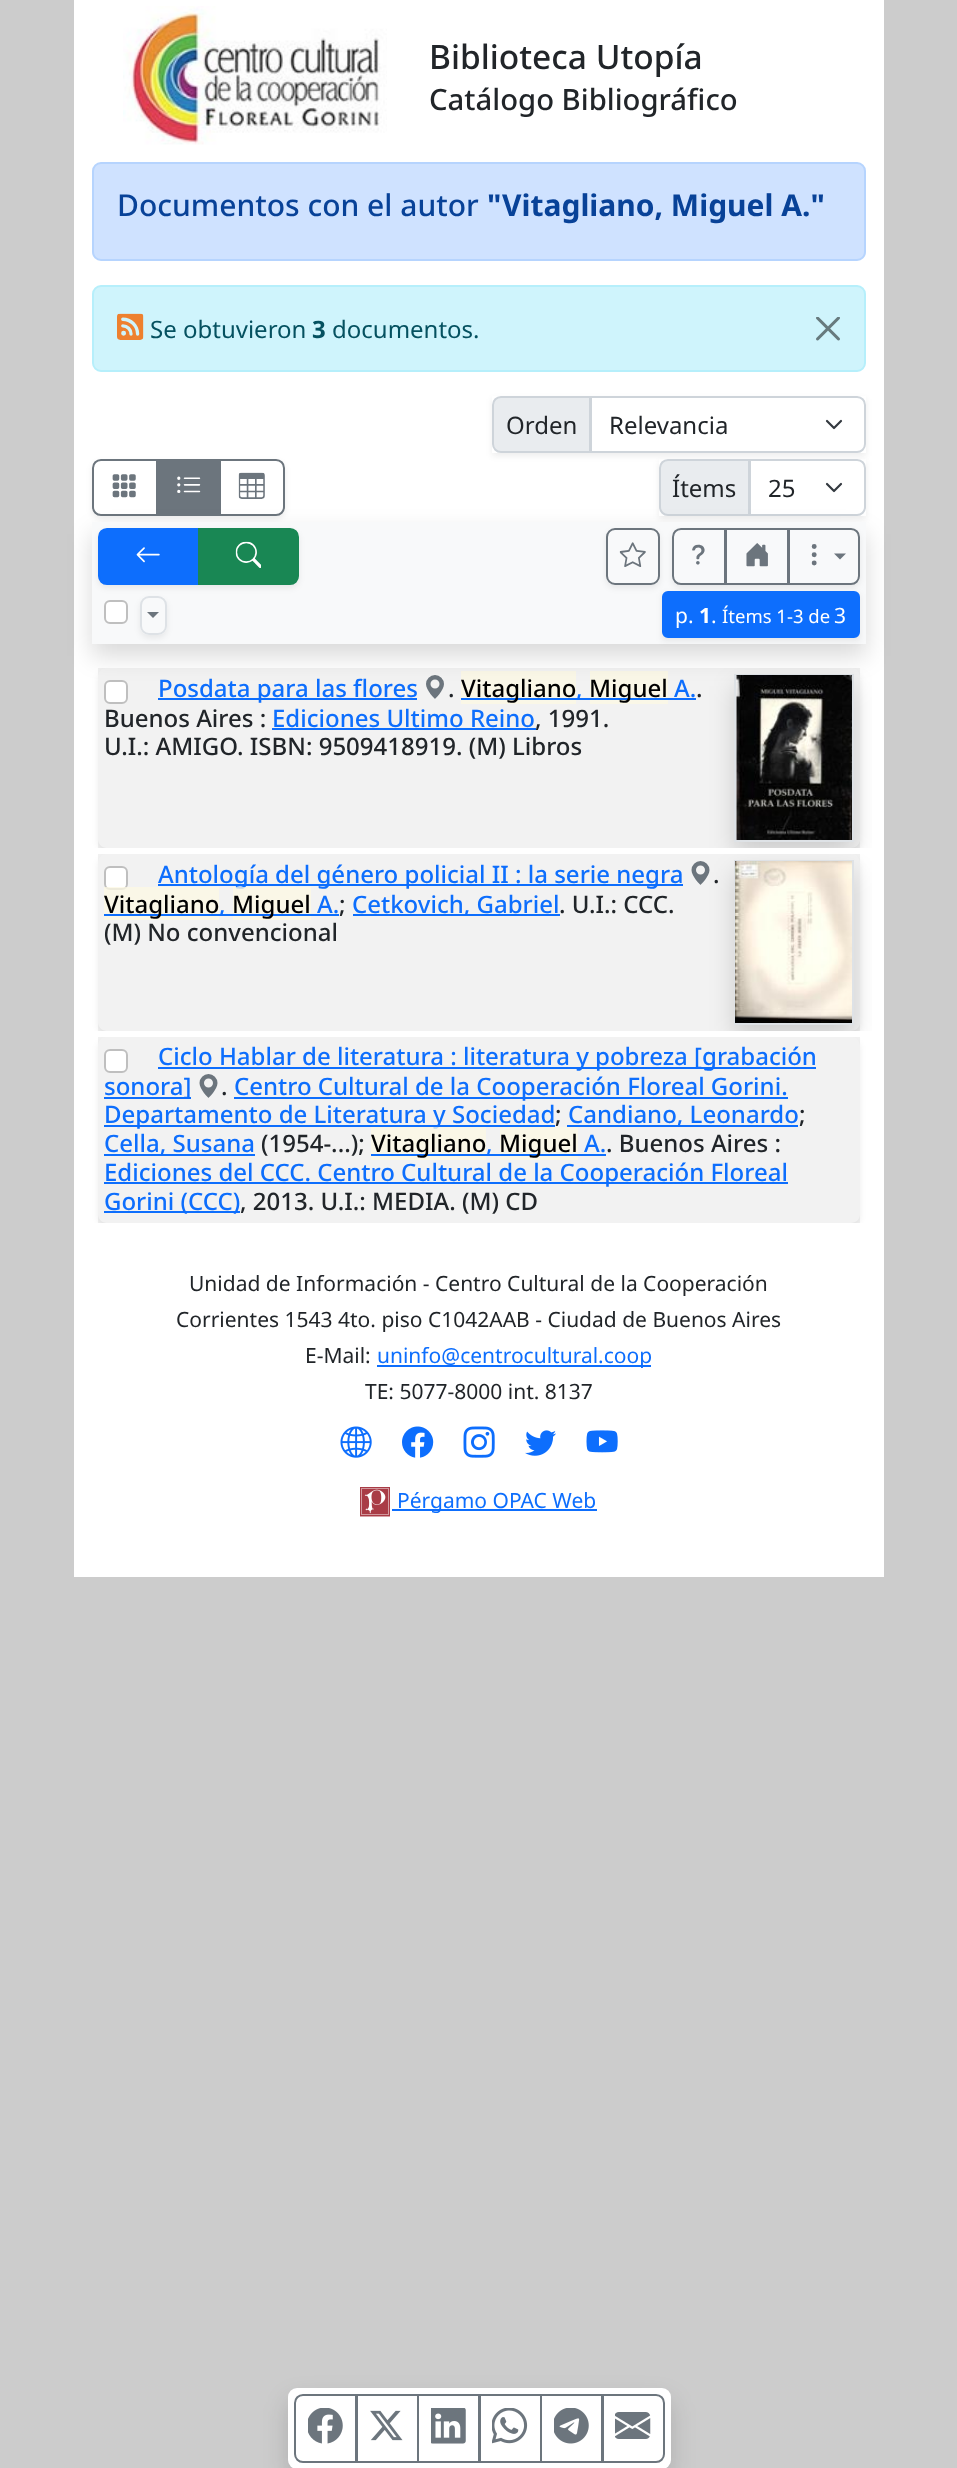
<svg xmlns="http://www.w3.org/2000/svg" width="957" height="2468">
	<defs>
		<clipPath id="clip1"><path d="M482 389H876V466H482ZM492 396H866V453H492Z" clip-rule="evenodd" /></clipPath>
		<clipPath id="clip2"><path d="M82 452H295V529H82ZM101 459H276C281 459 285 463 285 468V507C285 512 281 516 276 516H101C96 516 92 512 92 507V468C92 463 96 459 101 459Z" clip-rule="evenodd" /></clipPath>
		<clipPath id="clip3"><path d="M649 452H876V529H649ZM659 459H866V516H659Z" clip-rule="evenodd" /></clipPath>
		<clipPath id="clip4"><rect x="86" y="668" width="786" height="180" /></clipPath>
		<clipPath id="clip5"><path d="M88 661H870V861H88ZM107 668H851C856 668 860 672 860 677V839C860 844 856 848 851 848H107C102 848 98 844 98 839V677C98 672 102 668 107 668Z" clip-rule="evenodd" /></clipPath>
		<clipPath id="clip6"><path d="M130 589H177V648H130ZM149 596H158C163 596 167 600 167 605V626C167 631 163 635 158 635H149C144 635 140 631 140 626V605C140 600 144 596 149 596Z" clip-rule="evenodd" /></clipPath>
		<clipPath id="clip7"><path d="M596 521H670V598H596ZM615 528H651C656 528 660 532 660 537V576C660 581 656 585 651 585H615C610 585 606 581 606 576V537C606 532 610 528 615 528Z" clip-rule="evenodd" /></clipPath>
		<clipPath id="clip8"><path d="M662 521H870V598H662ZM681 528H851C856 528 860 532 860 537V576C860 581 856 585 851 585H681C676 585 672 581 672 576V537C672 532 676 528 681 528Z" clip-rule="evenodd" /></clipPath>
		<clipPath id="clip9"><rect x="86" y="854" width="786" height="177" /></clipPath>
		<clipPath id="clip10"><path d="M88 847H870V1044H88ZM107 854H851C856 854 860 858 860 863V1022C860 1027 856 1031 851 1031H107C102 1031 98 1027 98 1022V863C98 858 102 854 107 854Z" clip-rule="evenodd" /></clipPath>
		<clipPath id="clip11"><rect x="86" y="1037" width="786" height="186" /></clipPath>
		<clipPath id="clip12"><path d="M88 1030H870V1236H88ZM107 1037H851C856 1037 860 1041 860 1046V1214C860 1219 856 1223 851 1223H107C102 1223 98 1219 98 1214V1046C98 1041 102 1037 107 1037Z" clip-rule="evenodd" /></clipPath>
	</defs>
	<rect width="100%" height="100%" fill="#CCCCCC" />
	<rect x="74" y="0" width="810" height="1577" fill="#FFFFFF" />
	<image x="123" y="6" width="264" height="139" href="assets/img1.png" />
	<text x="429" y="69" font-family="Noto Sans" font-size="33.5" font-weight="500" fill="#212529">Biblioteca Utopía</text>
	<text x="429" y="110" font-family="Noto Sans" font-size="29.25" font-weight="500" fill="#212529">Catálogo Bibliográfico</text>
	<rect x="93" y="163" width="772" height="97" rx="8" fill="#CFE2FF" stroke="#B6D4FE" stroke-width="2" />
	<text x="117" y="216" font-family="Noto Sans" font-size="30" font-weight="500" fill="#084298">Documentos con el autor</text>
	<text x="487" y="216" font-family="Noto Sans" font-size="30" font-weight="700" fill="#084298">"Vitagliano, Miguel A."</text>
	<rect x="93" y="286" width="772" height="85" rx="8" fill="#CFF4FC" stroke="#B6EFFB" stroke-width="2" />
	<image x="117" y="313" width="27" height="27" href="assets/img2.png" />
	<text x="150" y="338" font-family="Noto Sans" font-size="24" fill="#055160">Se obtuvieron</text>
	<text x="312" y="338" font-family="Noto Sans" font-size="24" font-weight="700" fill="#055160">3</text>
	<text x="332" y="338" font-family="Noto Sans" font-size="24" fill="#055160">documentos.</text>
	<image x="816" y="317" width="24" height="24" href="assets/img3.png" />
	<g clip-path="url(#clip1)">
		<rect x="492" y="399" width="374" height="57" fill="#000000" fill-opacity="0.07" filter="blur(3px)" />
	</g>
	<path d="M501 397H590V452H501C496.5 452 493 448.5 493 444V405C493 400.5 496.5 397 501 397Z" fill="#E9ECEF" stroke="#CED4DA" stroke-width="2" />
	<text x="506" y="434" font-family="Noto Sans" font-size="24" fill="#212529">Orden</text>
	<path d="M590 396H857C862 396 866 400 866 405V444C866 449 862 453 857 453H590Z" fill="#FFFFFF" />
	<path d="M827 421L834 428L841 421" fill="none" stroke="#343A40" stroke-width="2.2" stroke-linecap="round" stroke-linejoin="round" />
	<path d="M591 397H857C861.5 397 865 400.5 865 405V444C865 448.5 861.5 452 857 452H591Z" fill="none" stroke="#CED4DA" stroke-width="2" />
	<text x="609" y="434" font-family="Noto Sans" font-size="24" fill="#212529">Relevancia</text>
	<g clip-path="url(#clip2)">
		<rect x="92" y="462" width="193" height="57" rx="9" fill="#000000" fill-opacity="0.07" filter="blur(3px)" />
	</g>
	<path d="M101 460H157V515H101C96.5 515 93 511.5 93 507V468C93 463.5 96.5 460 101 460Z" fill="none" stroke="#6C757D" stroke-width="2" />
	<image x="112" y="474" width="24" height="24" href="assets/img4.png" />
	<rect x="158" y="459" width="61" height="57" fill="#6C757D" />
	<image x="177" y="476" width="24" height="17" href="assets/img5.png" />
	<path d="M220 460H276C280.5 460 284 463.5 284 468V507C284 511.5 280.5 515 276 515H220Z" fill="none" stroke="#6C757D" stroke-width="2" />
	<image x="238" y="472" width="27" height="27" href="assets/img6.png" />
	<g clip-path="url(#clip3)">
		<rect x="659" y="462" width="207" height="57" fill="#000000" fill-opacity="0.07" filter="blur(3px)" />
	</g>
	<path d="M668 460H749V515H668C663.5 515 660 511.5 660 507V468C660 463.5 663.5 460 668 460Z" fill="#E9ECEF" stroke="#CED4DA" stroke-width="2" />
	<text x="672" y="497" font-family="Noto Sans" font-size="24" fill="#212529">Ítems</text>
	<path d="M749 459H857C862 459 866 463 866 468V507C866 512 862 516 857 516H749Z" fill="#FFFFFF" />
	<path d="M827 484L834 491L841 484" fill="none" stroke="#343A40" stroke-width="2.2" stroke-linecap="round" stroke-linejoin="round" />
	<path d="M750 460H857C861.5 460 865 463.5 865 468V507C865 511.5 861.5 515 857 515H750Z" fill="none" stroke="#CED4DA" stroke-width="2" />
	<text x="768" y="497" font-family="Noto Sans" font-size="24" fill="#212529">25</text>
	<g clip-path="url(#clip4)">
		<g clip-path="url(#clip5)">
			<rect x="98" y="671" width="762" height="180" rx="9" fill="#000000" fill-opacity="0.07" filter="blur(3px)" />
		</g>
	</g>
	<rect x="98" y="668" width="762" height="180" fill="#000000" fill-opacity="0.05" />
	<rect x="104" y="680" width="24" height="24" rx="6" fill="#FFFFFF" />
	<rect x="105" y="681" width="22" height="22" rx="5" fill="none" stroke="#000000" stroke-opacity="0.25" stroke-width="2" />
	<image x="426" y="675" width="18" height="24" href="assets/img13.png" />
	<rect x="461" y="671" width="115" height="33" fill="#FAF7E7" />
	<rect x="590" y="671" width="78" height="33" fill="#FAF7E7" />
	<g clip-path="url(#clip4)">
		<rect x="734" y="686" width="120" height="168" fill="#000000" fill-opacity="0.15" filter="blur(12px)" />
	</g>
	<rect x="736" y="676" width="1" height="164" fill="#F8F9FA" />
	<rect x="735" y="675" width="118" height="166" fill="none" stroke="#DEE2E6" stroke-width="2" />
	<image x="736" y="675" width="116" height="165" href="assets/img14.png" />
	<rect x="92" y="534" width="774" height="122" fill="#000000" fill-opacity="0.15" filter="blur(12px)" />
	<rect x="92" y="522" width="774" height="122" fill="#F8F9FA" />
	<g clip-path="url(#clip6)">
		<rect x="140" y="599" width="27" height="39" rx="9" fill="#000000" fill-opacity="0.07" filter="blur(3px)" />
	</g>
	<rect x="141" y="597" width="25" height="37" rx="8" fill="none" stroke="#DEE2E6" stroke-width="2" />
	<rect x="98" y="531" width="201" height="57" rx="9" fill="#000000" fill-opacity="0.07" filter="blur(3px)" />
	<path d="M107 529H199V584H107C102.5 584 99 580.5 99 576V537C99 532.5 102.5 529 107 529Z" fill="#0D6EFD" stroke="#0D6EFD" stroke-width="2" />
	<image x="136" y="547" width="24" height="16" href="assets/img7.png" />
	<path d="M199 529H290C294.5 529 298 532.5 298 537V576C298 580.5 294.5 584 290 584H199Z" fill="#198754" stroke="#198754" stroke-width="2" />
	<image x="235" y="541" width="26" height="27" href="assets/img8.png" />
	<g clip-path="url(#clip7)">
		<rect x="606" y="531" width="54" height="57" rx="9" fill="#000000" fill-opacity="0.07" filter="blur(3px)" />
	</g>
	<rect x="662" y="594" width="198" height="47" fill="#000000" fill-opacity="0.07" filter="blur(3px)" />
	<rect x="607" y="529" width="52" height="55" rx="8" fill="none" stroke="#6C757D" stroke-width="2" />
	<image x="619" y="542" width="27" height="25" href="assets/img9.png" />
	<g clip-path="url(#clip8)">
		<rect x="672" y="531" width="188" height="57" rx="9" fill="#000000" fill-opacity="0.07" filter="blur(3px)" />
	</g>
	<path d="M681 529H725V584H681C676.5 584 673 580.5 673 576V537C673 532.5 676.5 529 681 529Z" fill="none" stroke="#6C757D" stroke-width="2" />
	<image x="692" y="544" width="13" height="21" href="assets/img10.png" />
	<rect x="726" y="529" width="62" height="55" fill="none" stroke="#6C757D" stroke-width="2" />
	<image x="746" y="543" width="22" height="24" href="assets/img11.png" />
	<path d="M789 529H851C855.5 529 859 532.5 859 537V576C859 580.5 855.5 584 851 584H789Z" fill="none" stroke="#6C757D" stroke-width="2" />
	<image x="811" y="544" width="6" height="22" href="assets/img12.png" />
	<path d="M834 553.5H846L840 559.5Z" fill="#6C757D" />
	<rect x="105" y="601" width="22" height="22" rx="5" fill="#FFFFFF" stroke="#BFBFBF" stroke-width="2" />
	<path d="M147 612H159L153 618Z" fill="#6C757D" />
	<rect x="663" y="592" width="196" height="45" rx="5" fill="#0D6EFD" stroke="#0D6EFD" stroke-width="2" />
	<text x="675" y="623" font-family="Noto Sans" font-size="21" fill="#FFFFFF">p.</text>
	<text x="699" y="623" font-family="Noto Sans" font-size="21" font-weight="700" fill="#FFFFFF">1</text>
	<text x="711" y="623" font-family="Noto Sans" font-size="21" fill="#FFFFFF">.</text>
	<text x="722" y="623" font-family="Noto Sans" font-size="18.5" fill="#FFFFFF">Ítems 1-3 de</text>
	<text x="834" y="623" font-family="Noto Sans" font-size="21" fill="#FFFFFF">3</text>
	<rect x="158" y="698" width="259" height="2" fill="#0D6EFD" />
	<text x="158" y="697" font-family="Noto Sans" font-size="24" font-weight="500" fill="#0D6EFD">Posdata para las flores</text>
	<text x="448" y="697" font-family="Noto Sans" font-size="24" font-weight="500" fill="#212529">.</text>
	<rect x="461" y="698" width="129" height="2" fill="#0D6EFD" />
	<text x="461" y="697" font-family="Noto Sans" font-size="24" font-weight="500" fill="#000000">Vitagliano</text>
	<rect x="590" y="698" width="106" height="2" fill="#0D6EFD" />
	<text x="589" y="697" font-family="Noto Sans" font-size="24" font-weight="500" fill="#000000">Miguel</text>
	<g font-family="Noto Sans" font-size="24" font-weight="500" fill="#0D6EFD">
		<text x="674" y="697">A.</text>
		<text x="576" y="697">,</text>
	</g>
	<g font-family="Noto Sans" font-size="24" font-weight="500" fill="#212529">
		<text x="696" y="697">.</text>
		<text x="104" y="727">Buenos Aires :</text>
	</g>
	<text x="272" y="727" font-family="Noto Sans" font-size="24" font-weight="500" fill="#0D6EFD">Ediciones Ultimo Reino</text>
	<rect x="272" y="728" width="264" height="2" fill="#0D6EFD" />
	<g font-family="Noto Sans" font-size="24" font-weight="500" fill="#212529">
		<text x="535" y="727">, 1991.</text>
		<text x="104" y="755">U.I.: AMIGO. ISBN: 9509418919. (M) Libros</text>
	</g>
	<g clip-path="url(#clip9)">
		<g clip-path="url(#clip10)">
			<rect x="98" y="857" width="762" height="177" rx="9" fill="#000000" fill-opacity="0.07" filter="blur(3px)" />
		</g>
	</g>
	<rect x="98" y="854" width="762" height="177" fill="#000000" fill-opacity="0.05" />
	<g clip-path="url(#clip9)">
		<rect x="734" y="872" width="120" height="165" fill="#000000" fill-opacity="0.15" filter="blur(12px)" />
	</g>
	<rect x="735" y="861" width="118" height="163" fill="none" stroke="#DEE2E6" stroke-width="2" />
	<image x="735" y="861" width="117" height="162" href="assets/img15.png" />
	<rect x="104" y="866" width="24" height="24" rx="6" fill="#FFFFFF" />
	<rect x="105" y="867" width="22" height="22" rx="5" fill="none" stroke="#000000" stroke-opacity="0.25" stroke-width="2" />
	<rect x="158" y="884" width="525" height="2" fill="#0D6EFD" />
	<text x="158" y="883" font-family="Noto Sans" font-size="24" font-weight="500" fill="#0D6EFD">Antología del género policial II : la serie negra</text>
	<image x="691" y="861" width="19" height="24" href="assets/img16.png" />
	<text x="713" y="883" font-family="Noto Sans" font-size="24" font-weight="500" fill="#212529">.</text>
	<rect x="104" y="887" width="115" height="33" fill="#FCF8E3" fill-opacity="0.75" />
	<rect x="104" y="914" width="129" height="2" fill="#0D6EFD" />
	<text x="104" y="913" font-family="Noto Sans" font-size="24" font-weight="500" fill="#000000">Vitagliano</text>
	<text x="219" y="913" font-family="Noto Sans" font-size="24" font-weight="500" fill="#0D6EFD">,</text>
	<rect x="233" y="887" width="78" height="33" fill="#FCF8E3" fill-opacity="0.75" />
	<rect x="233" y="914" width="106" height="2" fill="#0D6EFD" />
	<text x="232" y="913" font-family="Noto Sans" font-size="24" font-weight="500" fill="#000000">Miguel</text>
	<text x="317" y="913" font-family="Noto Sans" font-size="24" font-weight="500" fill="#0D6EFD">A.</text>
	<text x="339" y="913" font-family="Noto Sans" font-size="24" font-weight="500" fill="#212529">;</text>
	<rect x="353" y="914" width="207" height="2" fill="#0D6EFD" />
	<text x="352" y="913" font-family="Noto Sans" font-size="24" font-weight="500" fill="#0D6EFD">Cetkovich, Gabriel</text>
	<g font-family="Noto Sans" font-size="24" font-weight="500" fill="#212529">
		<text x="559" y="913">. U.I.: CCC.</text>
		<text x="104" y="941">(M) No convencional</text>
	</g>
	<g clip-path="url(#clip11)">
		<g clip-path="url(#clip12)">
			<rect x="98" y="1040" width="762" height="186" rx="9" fill="#000000" fill-opacity="0.07" filter="blur(3px)" />
		</g>
	</g>
	<rect x="98" y="1037" width="762" height="186" fill="#000000" fill-opacity="0.05" />
	<rect x="104" y="1049" width="24" height="24" rx="6" fill="#FFFFFF" />
	<rect x="105" y="1050" width="22" height="22" rx="5" fill="none" stroke="#000000" stroke-opacity="0.25" stroke-width="2" />
	<rect x="158" y="1067" width="658" height="2" fill="#0D6EFD" />
	<text x="158" y="1065" font-family="Noto Sans" font-size="24" font-weight="500" fill="#0D6EFD">Ciclo Hablar de literatura : literatura y pobreza [grabación</text>
	<rect x="104" y="1097" width="87" height="2" fill="#0D6EFD" />
	<text x="104" y="1095" font-family="Noto Sans" font-size="24" font-weight="500" fill="#0D6EFD">sonora]</text>
	<image x="199" y="1074" width="19" height="24" href="assets/img17.png" />
	<text x="221" y="1095" font-family="Noto Sans" font-size="24" font-weight="500" fill="#212529">.</text>
	<rect x="234" y="1097" width="554" height="2" fill="#0D6EFD" />
	<text x="234" y="1095" font-family="Noto Sans" font-size="24" font-weight="500" fill="#0D6EFD">Centro Cultural de la Cooperación Floreal Gorini.</text>
	<rect x="104" y="1125" width="451" height="2" fill="#0D6EFD" />
	<text x="104" y="1123" font-family="Noto Sans" font-size="24" font-weight="500" fill="#0D6EFD">Departamento de Literatura y Sociedad</text>
	<text x="555" y="1123" font-family="Noto Sans" font-size="24" font-weight="500" fill="#212529">;</text>
	<rect x="567" y="1125" width="231" height="2" fill="#0D6EFD" />
	<text x="568" y="1123" font-family="Noto Sans" font-size="24" font-weight="500" fill="#0D6EFD">Candiano, Leonardo</text>
	<text x="799" y="1123" font-family="Noto Sans" font-size="24" font-weight="500" fill="#212529">;</text>
	<rect x="104" y="1154" width="151" height="2" fill="#0D6EFD" />
	<text x="104" y="1152" font-family="Noto Sans" font-size="24" font-weight="500" fill="#0D6EFD">Cella, Susana</text>
	<text x="261" y="1152" font-family="Noto Sans" font-size="24" font-weight="500" fill="#212529">(1954-...);</text>
	<rect x="371" y="1127" width="115" height="33" fill="#FCF8E3" fill-opacity="0.75" />
	<rect x="371" y="1154" width="129" height="2" fill="#0D6EFD" />
	<text x="371" y="1152" font-family="Noto Sans" font-size="24" font-weight="500" fill="#000000">Vitagliano</text>
	<text x="486" y="1152" font-family="Noto Sans" font-size="24" font-weight="500" fill="#0D6EFD">,</text>
	<rect x="500" y="1127" width="78" height="33" fill="#FAF7E7" />
	<rect x="500" y="1154" width="106" height="2" fill="#0D6EFD" />
	<text x="499" y="1152" font-family="Noto Sans" font-size="24" font-weight="500" fill="#000000">Miguel</text>
	<text x="584" y="1152" font-family="Noto Sans" font-size="24" font-weight="500" fill="#0D6EFD">A.</text>
	<text x="606" y="1152" font-family="Noto Sans" font-size="24" font-weight="500" fill="#212529">. Buenos Aires :</text>
	<rect x="104" y="1182" width="684" height="2" fill="#0D6EFD" />
	<text x="104" y="1181" font-family="Noto Sans" font-size="24" font-weight="500" fill="#0D6EFD">Ediciones del CCC. Centro Cultural de la Cooperación Floreal</text>
	<rect x="104" y="1211" width="136" height="2" fill="#0D6EFD" />
	<text x="104" y="1210" font-family="Noto Sans" font-size="24" font-weight="500" fill="#0D6EFD">Gorini (CCC)</text>
	<text x="240" y="1210" font-family="Noto Sans" font-size="24" font-weight="500" fill="#212529">, 2013. U.I.: MEDIA. (M) CD</text>
	<g font-family="Noto Sans" font-size="21" fill="#212529">
		<text x="189" y="1291">Unidad de Información - Centro Cultural de la Cooperación</text>
		<text x="176" y="1327">Corrientes 1543 4to. piso C1042AAB - Ciudad de Buenos Aires</text>
		<text x="305" y="1363">E-Mail:</text>
	</g>
	<rect x="377" y="1365" width="274" height="2" fill="#0D6EFD" />
	<text x="377" y="1363" font-family="Noto Sans" font-size="21" fill="#0D6EFD">uninfo@centrocultural.coop</text>
	<text x="365" y="1399" font-family="Noto Sans" font-size="21" fill="#212529">TE: 5077-8000 int. 8137</text>
	<image x="340" y="1426" width="32" height="32" href="assets/img18.png" />
	<image x="402" y="1426" width="32" height="32" href="assets/img19.png" />
	<image x="463" y="1426" width="32" height="32" href="assets/img20.png" />
	<image x="525" y="1430" width="31" height="26" href="assets/img21.png" />
	<image x="586" y="1430" width="32" height="23" href="assets/img22.png" />
	<image x="360" y="1487" width="30" height="30" href="assets/img23.png" />
	<rect x="392" y="1509" width="205" height="2" fill="#0D6EFD" />
	<text x="397" y="1508" font-family="Noto Sans" font-size="21" fill="#0D6EFD">Pérgamo OPAC Web</text>
	<rect x="288" y="2400" width="383" height="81" rx="9" fill="#000000" fill-opacity="0.15" filter="blur(12px)" />
	<rect x="288" y="2388" width="383" height="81" rx="9" fill="#FFFFFF" />
	<path d="M303 2395H356V2462H303C298.5 2462 295 2458.5 295 2454V2403C295 2398.5 298.5 2395 303 2395Z" fill="none" stroke="#6C757D" stroke-width="2" />
	<image x="308" y="2408" width="35" height="36" href="assets/img24.png" />
	<rect x="357" y="2395" width="61" height="67" fill="none" stroke="#6C757D" stroke-width="2" />
	<image x="370" y="2410" width="33" height="31" href="assets/img25.png" />
	<rect x="418" y="2395" width="61" height="67" fill="none" stroke="#6C757D" stroke-width="2" />
	<image x="431" y="2408" width="35" height="36" href="assets/img26.png" />
	<rect x="480" y="2395" width="61" height="67" fill="none" stroke="#6C757D" stroke-width="2" />
	<image x="492" y="2408" width="36" height="36" href="assets/img27.png" />
	<rect x="541" y="2395" width="61" height="67" fill="none" stroke="#6C757D" stroke-width="2" />
	<image x="554" y="2408" width="35" height="36" href="assets/img28.png" />
	<path d="M603 2395H656C660.5 2395 664 2398.5 664 2403V2454C664 2458.5 660.5 2462 656 2462H603Z" fill="none" stroke="#6C757D" stroke-width="2" />
	<image x="615" y="2412" width="36" height="27" href="assets/img29.png" />
</svg>
